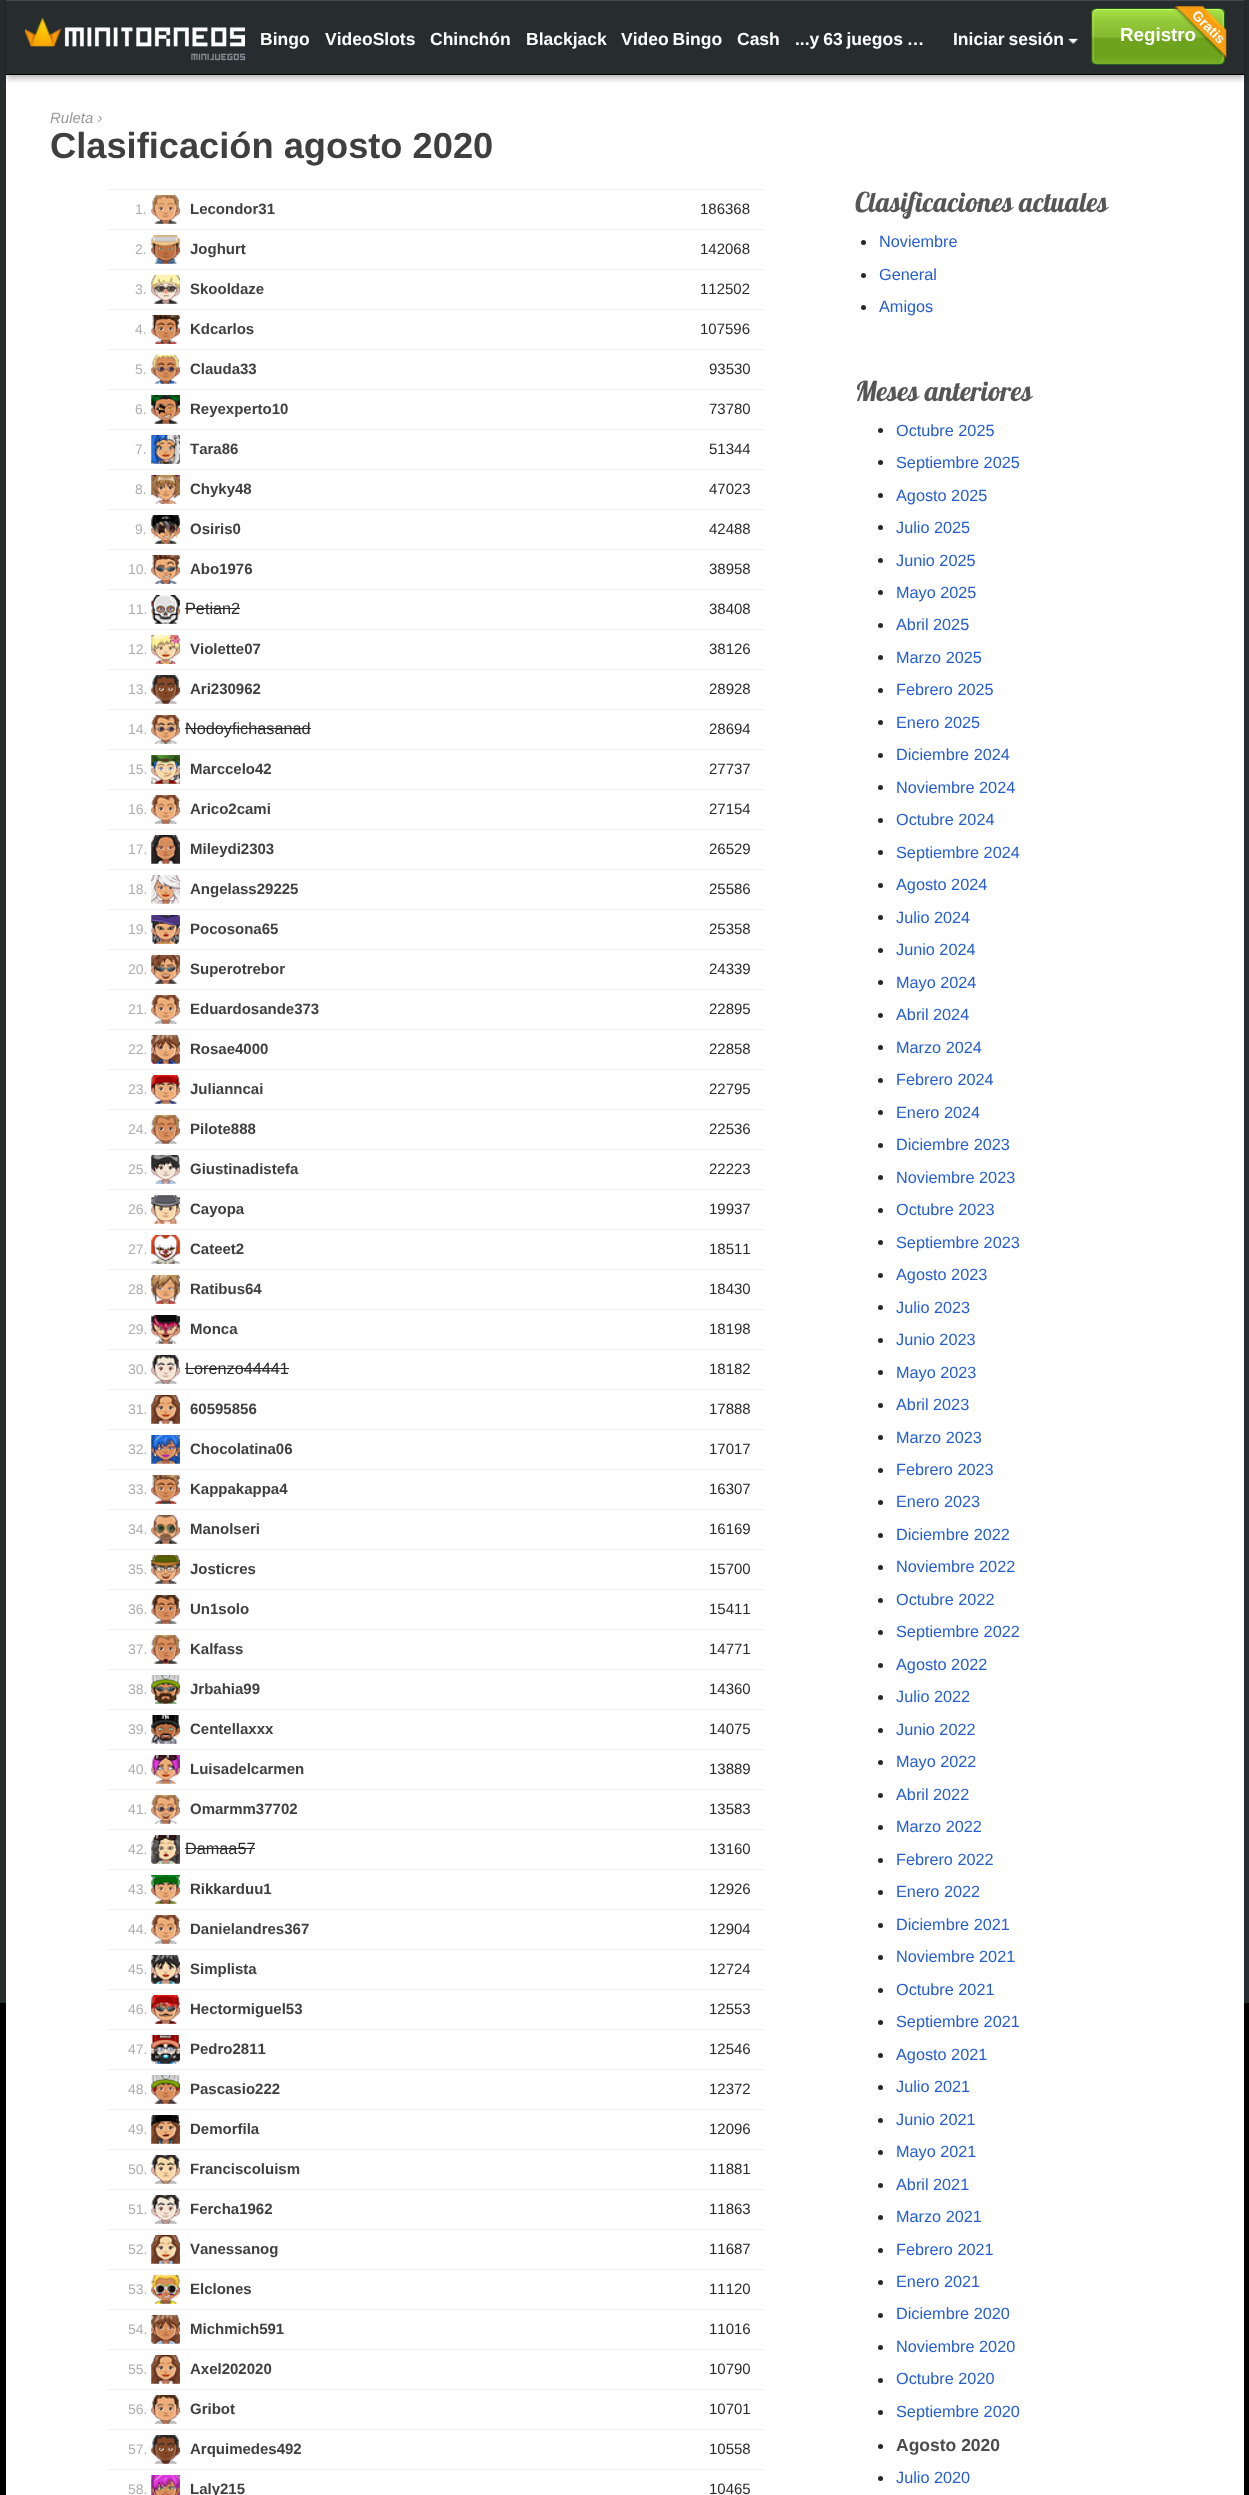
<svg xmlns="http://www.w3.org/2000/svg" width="1249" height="2495">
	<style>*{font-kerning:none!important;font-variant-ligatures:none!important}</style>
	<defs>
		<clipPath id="clip1"><rect x="1091" y="8" width="134" height="57" rx="6" /></clipPath>
		<linearGradient id="g1" gradientUnits="userSpaceOnUse" x1="1158" y1="9" x2="1158" y2="64"><stop offset="0" stop-color="#A8E446" /><stop offset="0.21" stop-color="#94CA39" /><stop offset="0.51" stop-color="#85B82F" /><stop offset="0.53" stop-color="#6EA31D" /><stop offset="0.88" stop-color="#6EA31D" /><stop offset="1" stop-color="#7AAE26" /></linearGradient>
	</defs>
	<rect width="100%" height="100%" fill="#000000" />
	<rect x="0" y="0" width="1249" height="2003" fill="#272C2E" />
	<rect x="6" y="75" width="1238" height="2420" fill="#FFFFFF" />
	<rect x="6" y="3" width="1238" height="75" fill="#000000" fill-opacity="0.3" filter="blur(3px)" />
	<rect x="6" y="1" width="1238" height="73" fill="#272C2E" />
	<rect x="6" y="0" width="1238" height="1" fill="#424A4D" />
	<rect x="6" y="74" width="1238" height="1" fill="#000000" />
	<image x="25" y="17" width="220" height="44" href="assets/img1.png" />
	<g font-family="Liberation Sans" font-size="17.5" font-weight="700" fill="#FFFFFF">
		<text x="260" y="45">Bingo</text>
		<text x="325" y="45">VideoSlots</text>
		<text x="430" y="45">Chinchón</text>
		<text x="526" y="45">Blackjack</text>
		<text x="621" y="45" word-spacing="-1">Video Bingo</text>
		<text x="737" y="45">Cash</text>
		<text x="795" y="45" word-spacing="-1">...y 63 juegos …</text>
		<text x="953" y="45" word-spacing="-1">Iniciar sesión</text>
	</g>
	<image x="1068" y="37" width="10" height="7" href="assets/img2.png" />
	<g clip-path="url(#clip1)">
		<rect x="1091" y="9" width="134" height="55" fill="url(#g1)" />
	</g>
	<path d="M1098 9C1095 9 1093 11 1093 14V59C1093 62 1095 64 1098 64H1099C1096 64 1094 62 1094 59V14C1094 11 1096 9 1099 9Z" fill="#CAFF67" fill-opacity="0.3" />
	<path d="M1218 64C1226 64 1224 57 1224 52V22C1224 16 1226 9 1218 9C1220 9 1222 11 1222 14V59C1222 62 1220 64 1218 64Z" fill="#CAFF67" fill-opacity="0.3" />
	<path d="M1098 10H1219C1222 10 1224 12 1224 15V14C1224 11 1222 9 1219 9H1098C1096 9 1094 10 1094 12C1095 11 1096 10 1098 10Z" fill="#CAFF67" />
	<rect x="1091.5" y="8.5" width="133" height="56" rx="5.5" fill="none" stroke="#205F21" />
	<text x="1120" y="41" font-family="Liberation Sans" font-size="18.75" font-weight="700" fill="#FFFFFF">Registro</text>
	<image x="1173" y="6" width="54" height="53" href="assets/img3.png" />
	<text x="1191" y="16" transform="rotate(45 1191 16)" font-family="Liberation Sans" font-size="14" font-weight="700" fill="#FFFFFF">Gratis</text>
	<text x="50" y="123" font-family="Liberation Sans" font-size="15" font-style="italic" fill="#999999">Ruleta ›</text>
	<text x="50" y="158" font-family="Liberation Sans" font-size="36.25" font-weight="700" fill="#3F3F3F">Clasificación agosto 2020</text>
	<rect x="108" y="189" width="656" height="1" fill="#F0F0F0" />
	<text x="135" y="214" font-family="Liberation Sans" font-size="14" fill="#AEAEAE">1.</text>
	<image x="151" y="195" width="29" height="29" href="assets/img4.png" />
	<text x="190" y="214" font-family="Liberation Sans" font-size="15" font-weight="700" fill="#3F3F3F">Lecondor31</text>
	<text x="700" y="214" font-family="Liberation Sans" font-size="15" fill="#292929">186368</text>
	<rect x="108" y="229" width="656" height="1" fill="#F0F0F0" />
	<text x="135" y="254" font-family="Liberation Sans" font-size="14" fill="#AEAEAE">2.</text>
	<image x="151" y="235" width="29" height="29" href="assets/img5.png" />
	<text x="190" y="254" font-family="Liberation Sans" font-size="15" font-weight="700" fill="#3F3F3F">Joghurt</text>
	<text x="700" y="254" font-family="Liberation Sans" font-size="15" fill="#292929">142068</text>
	<rect x="108" y="269" width="656" height="1" fill="#F0F0F0" />
	<text x="135" y="294" font-family="Liberation Sans" font-size="14" fill="#AEAEAE">3.</text>
	<image x="151" y="275" width="29" height="29" href="assets/img6.png" />
	<text x="190" y="294" font-family="Liberation Sans" font-size="15" font-weight="700" fill="#3F3F3F">Skooldaze</text>
	<text x="700" y="294" font-family="Liberation Sans" font-size="15" fill="#292929">112502</text>
	<rect x="108" y="309" width="656" height="1" fill="#F0F0F0" />
	<text x="135" y="334" font-family="Liberation Sans" font-size="14" fill="#AEAEAE">4.</text>
	<image x="151" y="315" width="29" height="29" href="assets/img7.png" />
	<text x="190" y="334" font-family="Liberation Sans" font-size="15" font-weight="700" fill="#3F3F3F">Kdcarlos</text>
	<text x="700" y="334" font-family="Liberation Sans" font-size="15" fill="#292929">107596</text>
	<rect x="108" y="349" width="656" height="1" fill="#F0F0F0" />
	<text x="135" y="374" font-family="Liberation Sans" font-size="14" fill="#AEAEAE">5.</text>
	<image x="151" y="355" width="29" height="29" href="assets/img8.png" />
	<text x="190" y="374" font-family="Liberation Sans" font-size="15" font-weight="700" fill="#3F3F3F">Clauda33</text>
	<text x="709" y="374" font-family="Liberation Sans" font-size="15" fill="#292929">93530</text>
	<rect x="108" y="389" width="656" height="1" fill="#F0F0F0" />
	<text x="135" y="414" font-family="Liberation Sans" font-size="14" fill="#AEAEAE">6.</text>
	<image x="151" y="395" width="29" height="29" href="assets/img9.png" />
	<text x="190" y="414" font-family="Liberation Sans" font-size="15" font-weight="700" fill="#3F3F3F">Reyexperto10</text>
	<text x="709" y="414" font-family="Liberation Sans" font-size="15" fill="#292929">73780</text>
	<rect x="108" y="429" width="656" height="1" fill="#F0F0F0" />
	<text x="135" y="454" font-family="Liberation Sans" font-size="14" fill="#AEAEAE">7.</text>
	<image x="151" y="435" width="29" height="29" href="assets/img10.png" />
	<text x="190" y="454" font-family="Liberation Sans" font-size="15" font-weight="700" fill="#3F3F3F">Tara86</text>
	<text x="709" y="454" font-family="Liberation Sans" font-size="15" fill="#292929">51344</text>
	<rect x="108" y="469" width="656" height="1" fill="#F0F0F0" />
	<text x="135" y="494" font-family="Liberation Sans" font-size="14" fill="#AEAEAE">8.</text>
	<image x="151" y="475" width="29" height="29" href="assets/img11.png" />
	<text x="190" y="494" font-family="Liberation Sans" font-size="15" font-weight="700" fill="#3F3F3F">Chyky48</text>
	<text x="709" y="494" font-family="Liberation Sans" font-size="15" fill="#292929">47023</text>
	<rect x="108" y="509" width="656" height="1" fill="#F0F0F0" />
	<text x="135" y="534" font-family="Liberation Sans" font-size="14" fill="#AEAEAE">9.</text>
	<image x="151" y="515" width="29" height="29" href="assets/img12.png" />
	<text x="190" y="534" font-family="Liberation Sans" font-size="15" font-weight="700" fill="#3F3F3F">Osiris0</text>
	<text x="709" y="534" font-family="Liberation Sans" font-size="15" fill="#292929">42488</text>
	<rect x="108" y="549" width="656" height="1" fill="#F0F0F0" />
	<text x="128" y="574" font-family="Liberation Sans" font-size="14" fill="#AEAEAE">10.</text>
	<image x="151" y="555" width="29" height="29" href="assets/img13.png" />
	<text x="190" y="574" font-family="Liberation Sans" font-size="15" font-weight="700" fill="#3F3F3F">Abo1976</text>
	<text x="709" y="574" font-family="Liberation Sans" font-size="15" fill="#292929">38958</text>
	<rect x="108" y="589" width="656" height="1" fill="#F0F0F0" />
	<text x="128" y="614" font-family="Liberation Sans" font-size="14" fill="#AEAEAE">11.</text>
	<image x="151" y="595" width="29" height="29" href="assets/img14.png" />
	<text x="185" y="614" font-family="Liberation Sans" font-size="16.25" fill="#292929">Petian2</text>
	<rect x="185" y="608" width="55" height="1" fill="#292929" />
	<text x="709" y="614" font-family="Liberation Sans" font-size="15" fill="#292929">38408</text>
	<rect x="108" y="629" width="656" height="1" fill="#F0F0F0" />
	<text x="128" y="654" font-family="Liberation Sans" font-size="14" fill="#AEAEAE">12.</text>
	<image x="151" y="635" width="29" height="29" href="assets/img15.png" />
	<text x="190" y="654" font-family="Liberation Sans" font-size="15" font-weight="700" fill="#3F3F3F">Violette07</text>
	<text x="709" y="654" font-family="Liberation Sans" font-size="15" fill="#292929">38126</text>
	<rect x="108" y="669" width="656" height="1" fill="#F0F0F0" />
	<text x="128" y="694" font-family="Liberation Sans" font-size="14" fill="#AEAEAE">13.</text>
	<image x="151" y="675" width="29" height="29" href="assets/img16.png" />
	<text x="190" y="694" font-family="Liberation Sans" font-size="15" font-weight="700" fill="#3F3F3F">Ari230962</text>
	<text x="709" y="694" font-family="Liberation Sans" font-size="15" fill="#292929">28928</text>
	<rect x="108" y="709" width="656" height="1" fill="#F0F0F0" />
	<text x="128" y="734" font-family="Liberation Sans" font-size="14" fill="#AEAEAE">14.</text>
	<image x="151" y="715" width="29" height="29" href="assets/img17.png" />
	<text x="185" y="734" font-family="Liberation Sans" font-size="16.25" fill="#292929">Nodoyfichasanad</text>
	<rect x="185" y="728" width="126" height="1" fill="#292929" />
	<text x="709" y="734" font-family="Liberation Sans" font-size="15" fill="#292929">28694</text>
	<rect x="108" y="749" width="656" height="1" fill="#F0F0F0" />
	<text x="128" y="774" font-family="Liberation Sans" font-size="14" fill="#AEAEAE">15.</text>
	<image x="151" y="755" width="29" height="29" href="assets/img18.png" />
	<text x="190" y="774" font-family="Liberation Sans" font-size="15" font-weight="700" fill="#3F3F3F">Marccelo42</text>
	<text x="709" y="774" font-family="Liberation Sans" font-size="15" fill="#292929">27737</text>
	<rect x="108" y="789" width="656" height="1" fill="#F0F0F0" />
	<text x="128" y="814" font-family="Liberation Sans" font-size="14" fill="#AEAEAE">16.</text>
	<image x="151" y="795" width="29" height="29" href="assets/img19.png" />
	<text x="190" y="814" font-family="Liberation Sans" font-size="15" font-weight="700" fill="#3F3F3F">Arico2cami</text>
	<text x="709" y="814" font-family="Liberation Sans" font-size="15" fill="#292929">27154</text>
	<rect x="108" y="829" width="656" height="1" fill="#F0F0F0" />
	<text x="128" y="854" font-family="Liberation Sans" font-size="14" fill="#AEAEAE">17.</text>
	<image x="151" y="835" width="29" height="29" href="assets/img20.png" />
	<text x="190" y="854" font-family="Liberation Sans" font-size="15" font-weight="700" fill="#3F3F3F">Mileydi2303</text>
	<text x="709" y="854" font-family="Liberation Sans" font-size="15" fill="#292929">26529</text>
	<rect x="108" y="869" width="656" height="1" fill="#F0F0F0" />
	<text x="128" y="894" font-family="Liberation Sans" font-size="14" fill="#AEAEAE">18.</text>
	<image x="151" y="875" width="29" height="29" href="assets/img21.png" />
	<text x="190" y="894" font-family="Liberation Sans" font-size="15" font-weight="700" fill="#3F3F3F">Angelass29225</text>
	<text x="709" y="894" font-family="Liberation Sans" font-size="15" fill="#292929">25586</text>
	<rect x="108" y="909" width="656" height="1" fill="#F0F0F0" />
	<text x="128" y="934" font-family="Liberation Sans" font-size="14" fill="#AEAEAE">19.</text>
	<image x="151" y="915" width="29" height="29" href="assets/img22.png" />
	<text x="190" y="934" font-family="Liberation Sans" font-size="15" font-weight="700" fill="#3F3F3F">Pocosona65</text>
	<text x="709" y="934" font-family="Liberation Sans" font-size="15" fill="#292929">25358</text>
	<rect x="108" y="949" width="656" height="1" fill="#F0F0F0" />
	<text x="128" y="974" font-family="Liberation Sans" font-size="14" fill="#AEAEAE">20.</text>
	<image x="151" y="955" width="29" height="29" href="assets/img23.png" />
	<text x="190" y="974" font-family="Liberation Sans" font-size="15" font-weight="700" fill="#3F3F3F">Superotrebor</text>
	<text x="709" y="974" font-family="Liberation Sans" font-size="15" fill="#292929">24339</text>
	<rect x="108" y="989" width="656" height="1" fill="#F0F0F0" />
	<text x="128" y="1014" font-family="Liberation Sans" font-size="14" fill="#AEAEAE">21.</text>
	<image x="151" y="995" width="29" height="29" href="assets/img19.png" />
	<text x="190" y="1014" font-family="Liberation Sans" font-size="15" font-weight="700" fill="#3F3F3F">Eduardosande373</text>
	<text x="709" y="1014" font-family="Liberation Sans" font-size="15" fill="#292929">22895</text>
	<rect x="108" y="1029" width="656" height="1" fill="#F0F0F0" />
	<text x="128" y="1054" font-family="Liberation Sans" font-size="14" fill="#AEAEAE">22.</text>
	<image x="151" y="1035" width="29" height="29" href="assets/img24.png" />
	<text x="190" y="1054" font-family="Liberation Sans" font-size="15" font-weight="700" fill="#3F3F3F">Rosae4000</text>
	<text x="709" y="1054" font-family="Liberation Sans" font-size="15" fill="#292929">22858</text>
	<rect x="108" y="1069" width="656" height="1" fill="#F0F0F0" />
	<text x="128" y="1094" font-family="Liberation Sans" font-size="14" fill="#AEAEAE">23.</text>
	<image x="151" y="1075" width="29" height="29" href="assets/img25.png" />
	<text x="190" y="1094" font-family="Liberation Sans" font-size="15" font-weight="700" fill="#3F3F3F">Julianncai</text>
	<text x="709" y="1094" font-family="Liberation Sans" font-size="15" fill="#292929">22795</text>
	<rect x="108" y="1109" width="656" height="1" fill="#F0F0F0" />
	<text x="128" y="1134" font-family="Liberation Sans" font-size="14" fill="#AEAEAE">24.</text>
	<image x="151" y="1115" width="29" height="29" href="assets/img26.png" />
	<text x="190" y="1134" font-family="Liberation Sans" font-size="15" font-weight="700" fill="#3F3F3F">Pilote888</text>
	<text x="709" y="1134" font-family="Liberation Sans" font-size="15" fill="#292929">22536</text>
	<rect x="108" y="1149" width="656" height="1" fill="#F0F0F0" />
	<text x="128" y="1174" font-family="Liberation Sans" font-size="14" fill="#AEAEAE">25.</text>
	<image x="151" y="1155" width="29" height="29" href="assets/img27.png" />
	<text x="190" y="1174" font-family="Liberation Sans" font-size="15" font-weight="700" fill="#3F3F3F">Giustinadistefa</text>
	<text x="709" y="1174" font-family="Liberation Sans" font-size="15" fill="#292929">22223</text>
	<rect x="108" y="1189" width="656" height="1" fill="#F0F0F0" />
	<text x="128" y="1214" font-family="Liberation Sans" font-size="14" fill="#AEAEAE">26.</text>
	<image x="151" y="1195" width="29" height="29" href="assets/img28.png" />
	<text x="190" y="1214" font-family="Liberation Sans" font-size="15" font-weight="700" fill="#3F3F3F">Cayopa</text>
	<text x="709" y="1214" font-family="Liberation Sans" font-size="15" fill="#292929">19937</text>
	<rect x="108" y="1229" width="656" height="1" fill="#F0F0F0" />
	<text x="128" y="1254" font-family="Liberation Sans" font-size="14" fill="#AEAEAE">27.</text>
	<image x="151" y="1235" width="29" height="29" href="assets/img29.png" />
	<text x="190" y="1254" font-family="Liberation Sans" font-size="15" font-weight="700" fill="#3F3F3F">Cateet2</text>
	<text x="709" y="1254" font-family="Liberation Sans" font-size="15" fill="#292929">18511</text>
	<rect x="108" y="1269" width="656" height="1" fill="#F0F0F0" />
	<text x="128" y="1294" font-family="Liberation Sans" font-size="14" fill="#AEAEAE">28.</text>
	<image x="151" y="1275" width="29" height="29" href="assets/img30.png" />
	<text x="190" y="1294" font-family="Liberation Sans" font-size="15" font-weight="700" fill="#3F3F3F">Ratibus64</text>
	<text x="709" y="1294" font-family="Liberation Sans" font-size="15" fill="#292929">18430</text>
	<rect x="108" y="1309" width="656" height="1" fill="#F0F0F0" />
	<text x="128" y="1334" font-family="Liberation Sans" font-size="14" fill="#AEAEAE">29.</text>
	<image x="151" y="1315" width="29" height="29" href="assets/img31.png" />
	<text x="190" y="1334" font-family="Liberation Sans" font-size="15" font-weight="700" fill="#3F3F3F">Monca</text>
	<text x="709" y="1334" font-family="Liberation Sans" font-size="15" fill="#292929">18198</text>
	<rect x="108" y="1349" width="656" height="1" fill="#F0F0F0" />
	<text x="128" y="1374" font-family="Liberation Sans" font-size="14" fill="#AEAEAE">30.</text>
	<image x="151" y="1355" width="29" height="29" href="assets/img32.png" />
	<text x="185" y="1374" font-family="Liberation Sans" font-size="16.25" fill="#292929">Lorenzo44441</text>
	<rect x="185" y="1368" width="104" height="1" fill="#292929" />
	<text x="709" y="1374" font-family="Liberation Sans" font-size="15" fill="#292929">18182</text>
	<rect x="108" y="1389" width="656" height="1" fill="#F0F0F0" />
	<text x="128" y="1414" font-family="Liberation Sans" font-size="14" fill="#AEAEAE">31.</text>
	<image x="151" y="1395" width="29" height="29" href="assets/img33.png" />
	<text x="190" y="1414" font-family="Liberation Sans" font-size="15" font-weight="700" fill="#3F3F3F">60595856</text>
	<text x="709" y="1414" font-family="Liberation Sans" font-size="15" fill="#292929">17888</text>
	<rect x="108" y="1429" width="656" height="1" fill="#F0F0F0" />
	<text x="128" y="1454" font-family="Liberation Sans" font-size="14" fill="#AEAEAE">32.</text>
	<image x="151" y="1435" width="29" height="29" href="assets/img34.png" />
	<text x="190" y="1454" font-family="Liberation Sans" font-size="15" font-weight="700" fill="#3F3F3F">Chocolatina06</text>
	<text x="709" y="1454" font-family="Liberation Sans" font-size="15" fill="#292929">17017</text>
	<rect x="108" y="1469" width="656" height="1" fill="#F0F0F0" />
	<text x="128" y="1494" font-family="Liberation Sans" font-size="14" fill="#AEAEAE">33.</text>
	<image x="151" y="1475" width="29" height="29" href="assets/img35.png" />
	<text x="190" y="1494" font-family="Liberation Sans" font-size="15" font-weight="700" fill="#3F3F3F">Kappakappa4</text>
	<text x="709" y="1494" font-family="Liberation Sans" font-size="15" fill="#292929">16307</text>
	<rect x="108" y="1509" width="656" height="1" fill="#F0F0F0" />
	<text x="128" y="1534" font-family="Liberation Sans" font-size="14" fill="#AEAEAE">34.</text>
	<image x="151" y="1515" width="29" height="29" href="assets/img36.png" />
	<text x="190" y="1534" font-family="Liberation Sans" font-size="15" font-weight="700" fill="#3F3F3F">Manolseri</text>
	<text x="709" y="1534" font-family="Liberation Sans" font-size="15" fill="#292929">16169</text>
	<rect x="108" y="1549" width="656" height="1" fill="#F0F0F0" />
	<text x="128" y="1574" font-family="Liberation Sans" font-size="14" fill="#AEAEAE">35.</text>
	<image x="151" y="1555" width="29" height="29" href="assets/img37.png" />
	<text x="190" y="1574" font-family="Liberation Sans" font-size="15" font-weight="700" fill="#3F3F3F">Josticres</text>
	<text x="709" y="1574" font-family="Liberation Sans" font-size="15" fill="#292929">15700</text>
	<rect x="108" y="1589" width="656" height="1" fill="#F0F0F0" />
	<text x="128" y="1614" font-family="Liberation Sans" font-size="14" fill="#AEAEAE">36.</text>
	<image x="151" y="1595" width="29" height="29" href="assets/img38.png" />
	<text x="190" y="1614" font-family="Liberation Sans" font-size="15" font-weight="700" fill="#3F3F3F">Un1solo</text>
	<text x="709" y="1614" font-family="Liberation Sans" font-size="15" fill="#292929">15411</text>
	<rect x="108" y="1629" width="656" height="1" fill="#F0F0F0" />
	<text x="128" y="1654" font-family="Liberation Sans" font-size="14" fill="#AEAEAE">37.</text>
	<image x="151" y="1635" width="29" height="29" href="assets/img39.png" />
	<text x="190" y="1654" font-family="Liberation Sans" font-size="15" font-weight="700" fill="#3F3F3F">Kalfass</text>
	<text x="709" y="1654" font-family="Liberation Sans" font-size="15" fill="#292929">14771</text>
	<rect x="108" y="1669" width="656" height="1" fill="#F0F0F0" />
	<text x="128" y="1694" font-family="Liberation Sans" font-size="14" fill="#AEAEAE">38.</text>
	<image x="151" y="1675" width="29" height="29" href="assets/img40.png" />
	<text x="190" y="1694" font-family="Liberation Sans" font-size="15" font-weight="700" fill="#3F3F3F">Jrbahia99</text>
	<text x="709" y="1694" font-family="Liberation Sans" font-size="15" fill="#292929">14360</text>
	<rect x="108" y="1709" width="656" height="1" fill="#F0F0F0" />
	<text x="128" y="1734" font-family="Liberation Sans" font-size="14" fill="#AEAEAE">39.</text>
	<image x="151" y="1715" width="29" height="29" href="assets/img41.png" />
	<text x="190" y="1734" font-family="Liberation Sans" font-size="15" font-weight="700" fill="#3F3F3F">Centellaxxx</text>
	<text x="709" y="1734" font-family="Liberation Sans" font-size="15" fill="#292929">14075</text>
	<rect x="108" y="1749" width="656" height="1" fill="#F0F0F0" />
	<text x="128" y="1774" font-family="Liberation Sans" font-size="14" fill="#AEAEAE">40.</text>
	<image x="151" y="1755" width="29" height="29" href="assets/img42.png" />
	<text x="190" y="1774" font-family="Liberation Sans" font-size="15" font-weight="700" fill="#3F3F3F">Luisadelcarmen</text>
	<text x="709" y="1774" font-family="Liberation Sans" font-size="15" fill="#292929">13889</text>
	<rect x="108" y="1789" width="656" height="1" fill="#F0F0F0" />
	<text x="128" y="1814" font-family="Liberation Sans" font-size="14" fill="#AEAEAE">41.</text>
	<image x="151" y="1795" width="29" height="29" href="assets/img43.png" />
	<text x="190" y="1814" font-family="Liberation Sans" font-size="15" font-weight="700" fill="#3F3F3F">Omarmm37702</text>
	<text x="709" y="1814" font-family="Liberation Sans" font-size="15" fill="#292929">13583</text>
	<rect x="108" y="1829" width="656" height="1" fill="#F0F0F0" />
	<text x="128" y="1854" font-family="Liberation Sans" font-size="14" fill="#AEAEAE">42.</text>
	<image x="151" y="1835" width="29" height="29" href="assets/img44.png" />
	<text x="185" y="1854" font-family="Liberation Sans" font-size="16.25" fill="#292929">Damaa57</text>
	<rect x="185" y="1848" width="70" height="1" fill="#292929" />
	<text x="709" y="1854" font-family="Liberation Sans" font-size="15" fill="#292929">13160</text>
	<rect x="108" y="1869" width="656" height="1" fill="#F0F0F0" />
	<text x="128" y="1894" font-family="Liberation Sans" font-size="14" fill="#AEAEAE">43.</text>
	<image x="151" y="1875" width="29" height="29" href="assets/img45.png" />
	<text x="190" y="1894" font-family="Liberation Sans" font-size="15" font-weight="700" fill="#3F3F3F">Rikkarduu1</text>
	<text x="709" y="1894" font-family="Liberation Sans" font-size="15" fill="#292929">12926</text>
	<rect x="108" y="1909" width="656" height="1" fill="#F0F0F0" />
	<text x="128" y="1934" font-family="Liberation Sans" font-size="14" fill="#AEAEAE">44.</text>
	<image x="151" y="1915" width="29" height="29" href="assets/img19.png" />
	<text x="190" y="1934" font-family="Liberation Sans" font-size="15" font-weight="700" fill="#3F3F3F">Danielandres367</text>
	<text x="709" y="1934" font-family="Liberation Sans" font-size="15" fill="#292929">12904</text>
	<rect x="108" y="1949" width="656" height="1" fill="#F0F0F0" />
	<text x="128" y="1974" font-family="Liberation Sans" font-size="14" fill="#AEAEAE">45.</text>
	<image x="151" y="1955" width="29" height="29" href="assets/img46.png" />
	<text x="190" y="1974" font-family="Liberation Sans" font-size="15" font-weight="700" fill="#3F3F3F">Simplista</text>
	<text x="709" y="1974" font-family="Liberation Sans" font-size="15" fill="#292929">12724</text>
	<rect x="108" y="1989" width="656" height="1" fill="#F0F0F0" />
	<text x="128" y="2014" font-family="Liberation Sans" font-size="14" fill="#AEAEAE">46.</text>
	<image x="151" y="1995" width="29" height="29" href="assets/img47.png" />
	<text x="190" y="2014" font-family="Liberation Sans" font-size="15" font-weight="700" fill="#3F3F3F">Hectormiguel53</text>
	<text x="709" y="2014" font-family="Liberation Sans" font-size="15" fill="#292929">12553</text>
	<rect x="108" y="2029" width="656" height="1" fill="#F0F0F0" />
	<text x="128" y="2054" font-family="Liberation Sans" font-size="14" fill="#AEAEAE">47.</text>
	<image x="151" y="2035" width="29" height="29" href="assets/img48.png" />
	<text x="190" y="2054" font-family="Liberation Sans" font-size="15" font-weight="700" fill="#3F3F3F">Pedro2811</text>
	<text x="709" y="2054" font-family="Liberation Sans" font-size="15" fill="#292929">12546</text>
	<rect x="108" y="2069" width="656" height="1" fill="#F0F0F0" />
	<text x="128" y="2094" font-family="Liberation Sans" font-size="14" fill="#AEAEAE">48.</text>
	<image x="151" y="2075" width="29" height="29" href="assets/img49.png" />
	<text x="190" y="2094" font-family="Liberation Sans" font-size="15" font-weight="700" fill="#3F3F3F">Pascasio222</text>
	<text x="709" y="2094" font-family="Liberation Sans" font-size="15" fill="#292929">12372</text>
	<rect x="108" y="2109" width="656" height="1" fill="#F0F0F0" />
	<text x="128" y="2134" font-family="Liberation Sans" font-size="14" fill="#AEAEAE">49.</text>
	<image x="151" y="2115" width="29" height="29" href="assets/img50.png" />
	<text x="190" y="2134" font-family="Liberation Sans" font-size="15" font-weight="700" fill="#3F3F3F">Demorfila</text>
	<text x="709" y="2134" font-family="Liberation Sans" font-size="15" fill="#292929">12096</text>
	<rect x="108" y="2149" width="656" height="1" fill="#F0F0F0" />
	<text x="128" y="2174" font-family="Liberation Sans" font-size="14" fill="#AEAEAE">50.</text>
	<image x="151" y="2155" width="29" height="29" href="assets/img51.png" />
	<text x="190" y="2174" font-family="Liberation Sans" font-size="15" font-weight="700" fill="#3F3F3F">Franciscoluism</text>
	<text x="709" y="2174" font-family="Liberation Sans" font-size="15" fill="#292929">11881</text>
	<rect x="108" y="2189" width="656" height="1" fill="#F0F0F0" />
	<text x="128" y="2214" font-family="Liberation Sans" font-size="14" fill="#AEAEAE">51.</text>
	<image x="151" y="2195" width="29" height="29" href="assets/img52.png" />
	<text x="190" y="2214" font-family="Liberation Sans" font-size="15" font-weight="700" fill="#3F3F3F">Fercha1962</text>
	<text x="709" y="2214" font-family="Liberation Sans" font-size="15" fill="#292929">11863</text>
	<rect x="108" y="2229" width="656" height="1" fill="#F0F0F0" />
	<text x="128" y="2254" font-family="Liberation Sans" font-size="14" fill="#AEAEAE">52.</text>
	<image x="151" y="2235" width="29" height="29" href="assets/img53.png" />
	<text x="190" y="2254" font-family="Liberation Sans" font-size="15" font-weight="700" fill="#3F3F3F">Vanessanog</text>
	<text x="709" y="2254" font-family="Liberation Sans" font-size="15" fill="#292929">11687</text>
	<rect x="108" y="2269" width="656" height="1" fill="#F0F0F0" />
	<text x="128" y="2294" font-family="Liberation Sans" font-size="14" fill="#AEAEAE">53.</text>
	<image x="151" y="2275" width="29" height="29" href="assets/img54.png" />
	<text x="190" y="2294" font-family="Liberation Sans" font-size="15" font-weight="700" fill="#3F3F3F">Elclones</text>
	<text x="709" y="2294" font-family="Liberation Sans" font-size="15" fill="#292929">11120</text>
	<rect x="108" y="2309" width="656" height="1" fill="#F0F0F0" />
	<text x="128" y="2334" font-family="Liberation Sans" font-size="14" fill="#AEAEAE">54.</text>
	<image x="151" y="2315" width="29" height="29" href="assets/img55.png" />
	<text x="190" y="2334" font-family="Liberation Sans" font-size="15" font-weight="700" fill="#3F3F3F">Michmich591</text>
	<text x="709" y="2334" font-family="Liberation Sans" font-size="15" fill="#292929">11016</text>
	<rect x="108" y="2349" width="656" height="1" fill="#F0F0F0" />
	<text x="128" y="2374" font-family="Liberation Sans" font-size="14" fill="#AEAEAE">55.</text>
	<image x="151" y="2355" width="29" height="29" href="assets/img33.png" />
	<text x="190" y="2374" font-family="Liberation Sans" font-size="15" font-weight="700" fill="#3F3F3F">Axel202020</text>
	<text x="709" y="2374" font-family="Liberation Sans" font-size="15" fill="#292929">10790</text>
	<rect x="108" y="2389" width="656" height="1" fill="#F0F0F0" />
	<text x="128" y="2414" font-family="Liberation Sans" font-size="14" fill="#AEAEAE">56.</text>
	<image x="151" y="2395" width="29" height="29" href="assets/img56.png" />
	<text x="190" y="2414" font-family="Liberation Sans" font-size="15" font-weight="700" fill="#3F3F3F">Gribot</text>
	<text x="709" y="2414" font-family="Liberation Sans" font-size="15" fill="#292929">10701</text>
	<rect x="108" y="2429" width="656" height="1" fill="#F0F0F0" />
	<text x="128" y="2454" font-family="Liberation Sans" font-size="14" fill="#AEAEAE">57.</text>
	<image x="151" y="2435" width="29" height="29" href="assets/img57.png" />
	<text x="190" y="2454" font-family="Liberation Sans" font-size="15" font-weight="700" fill="#3F3F3F">Arquimedes492</text>
	<text x="709" y="2454" font-family="Liberation Sans" font-size="15" fill="#292929">10558</text>
	<rect x="108" y="2469" width="656" height="1" fill="#F0F0F0" />
	<text x="128" y="2494" font-family="Liberation Sans" font-size="14" fill="#AEAEAE">58.</text>
	<image x="151" y="2475" width="29" height="20" href="assets/img58.png" />
	<text x="190" y="2494" font-family="Liberation Sans" font-size="15" font-weight="700" fill="#3F3F3F">Laly215</text>
	<text x="709" y="2494" font-family="Liberation Sans" font-size="15" fill="#292929">10465</text>
	<text x="855" y="212" font-family="Lobster" font-size="27.5" fill="#565656">Clasificaciones actuales</text>
	<circle cx="863.5" cy="242.5" r="2.5" fill="#292929" />
	<text x="879" y="247" font-family="Liberation Sans" font-size="16.25" fill="#255DD1">Noviembre</text>
	<circle cx="863.5" cy="275.5" r="2.5" fill="#292929" />
	<text x="879" y="280" font-family="Liberation Sans" font-size="16.25" fill="#255DD1">General</text>
	<circle cx="863.5" cy="307.5" r="2.5" fill="#292929" />
	<text x="879" y="312" font-family="Liberation Sans" font-size="16.25" fill="#255DD1">Amigos</text>
	<text x="855" y="401" font-family="Lobster" font-size="27.5" fill="#565656">Meses anteriores</text>
	<circle cx="880.5" cy="430.5" r="2.5" fill="#292929" />
	<text x="896" y="436" font-family="Liberation Sans" font-size="16.25" fill="#255DD1">Octubre 2025</text>
	<circle cx="880.5" cy="462.5" r="2.5" fill="#292929" />
	<text x="896" y="468" font-family="Liberation Sans" font-size="16.25" fill="#255DD1">Septiembre 2025</text>
	<circle cx="880.5" cy="495.5" r="2.5" fill="#292929" />
	<text x="896" y="501" font-family="Liberation Sans" font-size="16.25" fill="#255DD1">Agosto 2025</text>
	<circle cx="880.5" cy="527.5" r="2.5" fill="#292929" />
	<text x="896" y="533" font-family="Liberation Sans" font-size="16.25" fill="#255DD1">Julio 2025</text>
	<circle cx="880.5" cy="560.5" r="2.5" fill="#292929" />
	<text x="896" y="566" font-family="Liberation Sans" font-size="16.25" fill="#255DD1">Junio 2025</text>
	<circle cx="880.5" cy="592.5" r="2.5" fill="#292929" />
	<text x="896" y="598" font-family="Liberation Sans" font-size="16.25" fill="#255DD1">Mayo 2025</text>
	<circle cx="880.5" cy="625.5" r="2.5" fill="#292929" />
	<text x="896" y="630" font-family="Liberation Sans" font-size="16.25" fill="#255DD1">Abril 2025</text>
	<circle cx="880.5" cy="657.5" r="2.5" fill="#292929" />
	<text x="896" y="663" font-family="Liberation Sans" font-size="16.25" fill="#255DD1">Marzo 2025</text>
	<circle cx="880.5" cy="690.5" r="2.5" fill="#292929" />
	<text x="896" y="695" font-family="Liberation Sans" font-size="16.25" fill="#255DD1">Febrero 2025</text>
	<circle cx="880.5" cy="722.5" r="2.5" fill="#292929" />
	<text x="896" y="728" font-family="Liberation Sans" font-size="16.25" fill="#255DD1">Enero 2025</text>
	<circle cx="880.5" cy="755.5" r="2.5" fill="#292929" />
	<text x="896" y="760" font-family="Liberation Sans" font-size="16.25" fill="#255DD1">Diciembre 2024</text>
	<circle cx="880.5" cy="787.5" r="2.5" fill="#292929" />
	<text x="896" y="793" font-family="Liberation Sans" font-size="16.25" fill="#255DD1">Noviembre 2024</text>
	<circle cx="880.5" cy="820.5" r="2.5" fill="#292929" />
	<text x="896" y="825" font-family="Liberation Sans" font-size="16.25" fill="#255DD1">Octubre 2024</text>
	<circle cx="880.5" cy="852.5" r="2.5" fill="#292929" />
	<text x="896" y="858" font-family="Liberation Sans" font-size="16.25" fill="#255DD1">Septiembre 2024</text>
	<circle cx="880.5" cy="885.5" r="2.5" fill="#292929" />
	<text x="896" y="890" font-family="Liberation Sans" font-size="16.25" fill="#255DD1">Agosto 2024</text>
	<circle cx="880.5" cy="917.5" r="2.5" fill="#292929" />
	<text x="896" y="923" font-family="Liberation Sans" font-size="16.25" fill="#255DD1">Julio 2024</text>
	<circle cx="880.5" cy="950.5" r="2.5" fill="#292929" />
	<text x="896" y="955" font-family="Liberation Sans" font-size="16.25" fill="#255DD1">Junio 2024</text>
	<circle cx="880.5" cy="982.5" r="2.5" fill="#292929" />
	<text x="896" y="988" font-family="Liberation Sans" font-size="16.25" fill="#255DD1">Mayo 2024</text>
	<circle cx="880.5" cy="1015.5" r="2.5" fill="#292929" />
	<text x="896" y="1020" font-family="Liberation Sans" font-size="16.25" fill="#255DD1">Abril 2024</text>
	<circle cx="880.5" cy="1047.5" r="2.5" fill="#292929" />
	<text x="896" y="1053" font-family="Liberation Sans" font-size="16.25" fill="#255DD1">Marzo 2024</text>
	<circle cx="880.5" cy="1080.5" r="2.5" fill="#292929" />
	<text x="896" y="1085" font-family="Liberation Sans" font-size="16.25" fill="#255DD1">Febrero 2024</text>
	<circle cx="880.5" cy="1112.5" r="2.5" fill="#292929" />
	<text x="896" y="1118" font-family="Liberation Sans" font-size="16.25" fill="#255DD1">Enero 2024</text>
	<circle cx="880.5" cy="1145.5" r="2.5" fill="#292929" />
	<text x="896" y="1150" font-family="Liberation Sans" font-size="16.25" fill="#255DD1">Diciembre 2023</text>
	<circle cx="880.5" cy="1177.5" r="2.5" fill="#292929" />
	<text x="896" y="1183" font-family="Liberation Sans" font-size="16.25" fill="#255DD1">Noviembre 2023</text>
	<circle cx="880.5" cy="1210.5" r="2.5" fill="#292929" />
	<text x="896" y="1215" font-family="Liberation Sans" font-size="16.25" fill="#255DD1">Octubre 2023</text>
	<circle cx="880.5" cy="1242.5" r="2.5" fill="#292929" />
	<text x="896" y="1248" font-family="Liberation Sans" font-size="16.25" fill="#255DD1">Septiembre 2023</text>
	<circle cx="880.5" cy="1275.5" r="2.5" fill="#292929" />
	<text x="896" y="1280" font-family="Liberation Sans" font-size="16.25" fill="#255DD1">Agosto 2023</text>
	<circle cx="880.5" cy="1307.5" r="2.5" fill="#292929" />
	<text x="896" y="1313" font-family="Liberation Sans" font-size="16.25" fill="#255DD1">Julio 2023</text>
	<circle cx="880.5" cy="1340.5" r="2.5" fill="#292929" />
	<text x="896" y="1345" font-family="Liberation Sans" font-size="16.25" fill="#255DD1">Junio 2023</text>
	<circle cx="880.5" cy="1372.5" r="2.5" fill="#292929" />
	<text x="896" y="1378" font-family="Liberation Sans" font-size="16.25" fill="#255DD1">Mayo 2023</text>
	<circle cx="880.5" cy="1405.5" r="2.5" fill="#292929" />
	<text x="896" y="1410" font-family="Liberation Sans" font-size="16.25" fill="#255DD1">Abril 2023</text>
	<circle cx="880.5" cy="1437.5" r="2.5" fill="#292929" />
	<text x="896" y="1443" font-family="Liberation Sans" font-size="16.25" fill="#255DD1">Marzo 2023</text>
	<circle cx="880.5" cy="1470.5" r="2.5" fill="#292929" />
	<text x="896" y="1475" font-family="Liberation Sans" font-size="16.25" fill="#255DD1">Febrero 2023</text>
	<circle cx="880.5" cy="1502.5" r="2.5" fill="#292929" />
	<text x="896" y="1507" font-family="Liberation Sans" font-size="16.25" fill="#255DD1">Enero 2023</text>
	<circle cx="880.5" cy="1535.5" r="2.5" fill="#292929" />
	<text x="896" y="1540" font-family="Liberation Sans" font-size="16.25" fill="#255DD1">Diciembre 2022</text>
	<circle cx="880.5" cy="1567.5" r="2.5" fill="#292929" />
	<text x="896" y="1572" font-family="Liberation Sans" font-size="16.25" fill="#255DD1">Noviembre 2022</text>
	<circle cx="880.5" cy="1600.5" r="2.5" fill="#292929" />
	<text x="896" y="1605" font-family="Liberation Sans" font-size="16.25" fill="#255DD1">Octubre 2022</text>
	<circle cx="880.5" cy="1632.5" r="2.5" fill="#292929" />
	<text x="896" y="1637" font-family="Liberation Sans" font-size="16.25" fill="#255DD1">Septiembre 2022</text>
	<circle cx="880.5" cy="1665.5" r="2.5" fill="#292929" />
	<text x="896" y="1670" font-family="Liberation Sans" font-size="16.25" fill="#255DD1">Agosto 2022</text>
	<circle cx="880.5" cy="1697.5" r="2.5" fill="#292929" />
	<text x="896" y="1702" font-family="Liberation Sans" font-size="16.25" fill="#255DD1">Julio 2022</text>
	<circle cx="880.5" cy="1730.5" r="2.5" fill="#292929" />
	<text x="896" y="1735" font-family="Liberation Sans" font-size="16.25" fill="#255DD1">Junio 2022</text>
	<circle cx="880.5" cy="1762.5" r="2.5" fill="#292929" />
	<text x="896" y="1767" font-family="Liberation Sans" font-size="16.25" fill="#255DD1">Mayo 2022</text>
	<circle cx="880.5" cy="1795.5" r="2.5" fill="#292929" />
	<text x="896" y="1800" font-family="Liberation Sans" font-size="16.25" fill="#255DD1">Abril 2022</text>
	<circle cx="880.5" cy="1827.5" r="2.5" fill="#292929" />
	<text x="896" y="1832" font-family="Liberation Sans" font-size="16.25" fill="#255DD1">Marzo 2022</text>
	<circle cx="880.5" cy="1860.5" r="2.5" fill="#292929" />
	<text x="896" y="1865" font-family="Liberation Sans" font-size="16.25" fill="#255DD1">Febrero 2022</text>
	<circle cx="880.5" cy="1892.5" r="2.5" fill="#292929" />
	<text x="896" y="1897" font-family="Liberation Sans" font-size="16.25" fill="#255DD1">Enero 2022</text>
	<circle cx="880.5" cy="1925.5" r="2.5" fill="#292929" />
	<text x="896" y="1930" font-family="Liberation Sans" font-size="16.25" fill="#255DD1">Diciembre 2021</text>
	<circle cx="880.5" cy="1957.5" r="2.5" fill="#292929" />
	<text x="896" y="1962" font-family="Liberation Sans" font-size="16.25" fill="#255DD1">Noviembre 2021</text>
	<circle cx="880.5" cy="1990.5" r="2.5" fill="#292929" />
	<text x="896" y="1995" font-family="Liberation Sans" font-size="16.25" fill="#255DD1">Octubre 2021</text>
	<circle cx="880.5" cy="2022.5" r="2.5" fill="#292929" />
	<text x="896" y="2027" font-family="Liberation Sans" font-size="16.25" fill="#255DD1">Septiembre 2021</text>
	<circle cx="880.5" cy="2055.5" r="2.5" fill="#292929" />
	<text x="896" y="2060" font-family="Liberation Sans" font-size="16.25" fill="#255DD1">Agosto 2021</text>
	<circle cx="880.5" cy="2087.5" r="2.5" fill="#292929" />
	<text x="896" y="2092" font-family="Liberation Sans" font-size="16.25" fill="#255DD1">Julio 2021</text>
	<circle cx="880.5" cy="2120.5" r="2.5" fill="#292929" />
	<text x="896" y="2125" font-family="Liberation Sans" font-size="16.25" fill="#255DD1">Junio 2021</text>
	<circle cx="880.5" cy="2152.5" r="2.5" fill="#292929" />
	<text x="896" y="2157" font-family="Liberation Sans" font-size="16.25" fill="#255DD1">Mayo 2021</text>
	<circle cx="880.5" cy="2185.5" r="2.5" fill="#292929" />
	<text x="896" y="2190" font-family="Liberation Sans" font-size="16.25" fill="#255DD1">Abril 2021</text>
	<circle cx="880.5" cy="2217.5" r="2.5" fill="#292929" />
	<text x="896" y="2222" font-family="Liberation Sans" font-size="16.25" fill="#255DD1">Marzo 2021</text>
	<circle cx="880.5" cy="2250.5" r="2.5" fill="#292929" />
	<text x="896" y="2255" font-family="Liberation Sans" font-size="16.25" fill="#255DD1">Febrero 2021</text>
	<circle cx="880.5" cy="2282.5" r="2.5" fill="#292929" />
	<text x="896" y="2287" font-family="Liberation Sans" font-size="16.25" fill="#255DD1">Enero 2021</text>
	<circle cx="880.5" cy="2315.5" r="2.5" fill="#292929" />
	<text x="896" y="2319" font-family="Liberation Sans" font-size="16.25" fill="#255DD1">Diciembre 2020</text>
	<circle cx="880.5" cy="2347.5" r="2.5" fill="#292929" />
	<text x="896" y="2352" font-family="Liberation Sans" font-size="16.25" fill="#255DD1">Noviembre 2020</text>
	<circle cx="880.5" cy="2380.5" r="2.5" fill="#292929" />
	<text x="896" y="2384" font-family="Liberation Sans" font-size="16.25" fill="#255DD1">Octubre 2020</text>
	<circle cx="880.5" cy="2412.5" r="2.5" fill="#292929" />
	<text x="896" y="2417" font-family="Liberation Sans" font-size="16.25" fill="#255DD1">Septiembre 2020</text>
	<circle cx="880.5" cy="2446.5" r="2.5" fill="#292929" />
	<text x="896" y="2451" font-family="Liberation Sans" font-size="17.5" font-weight="700" fill="#4C4C4C">Agosto 2020</text>
	<circle cx="880.5" cy="2478.5" r="2.5" fill="#292929" />
	<text x="896" y="2483" font-family="Liberation Sans" font-size="16.25" fill="#255DD1">Julio 2020</text>
</svg>
